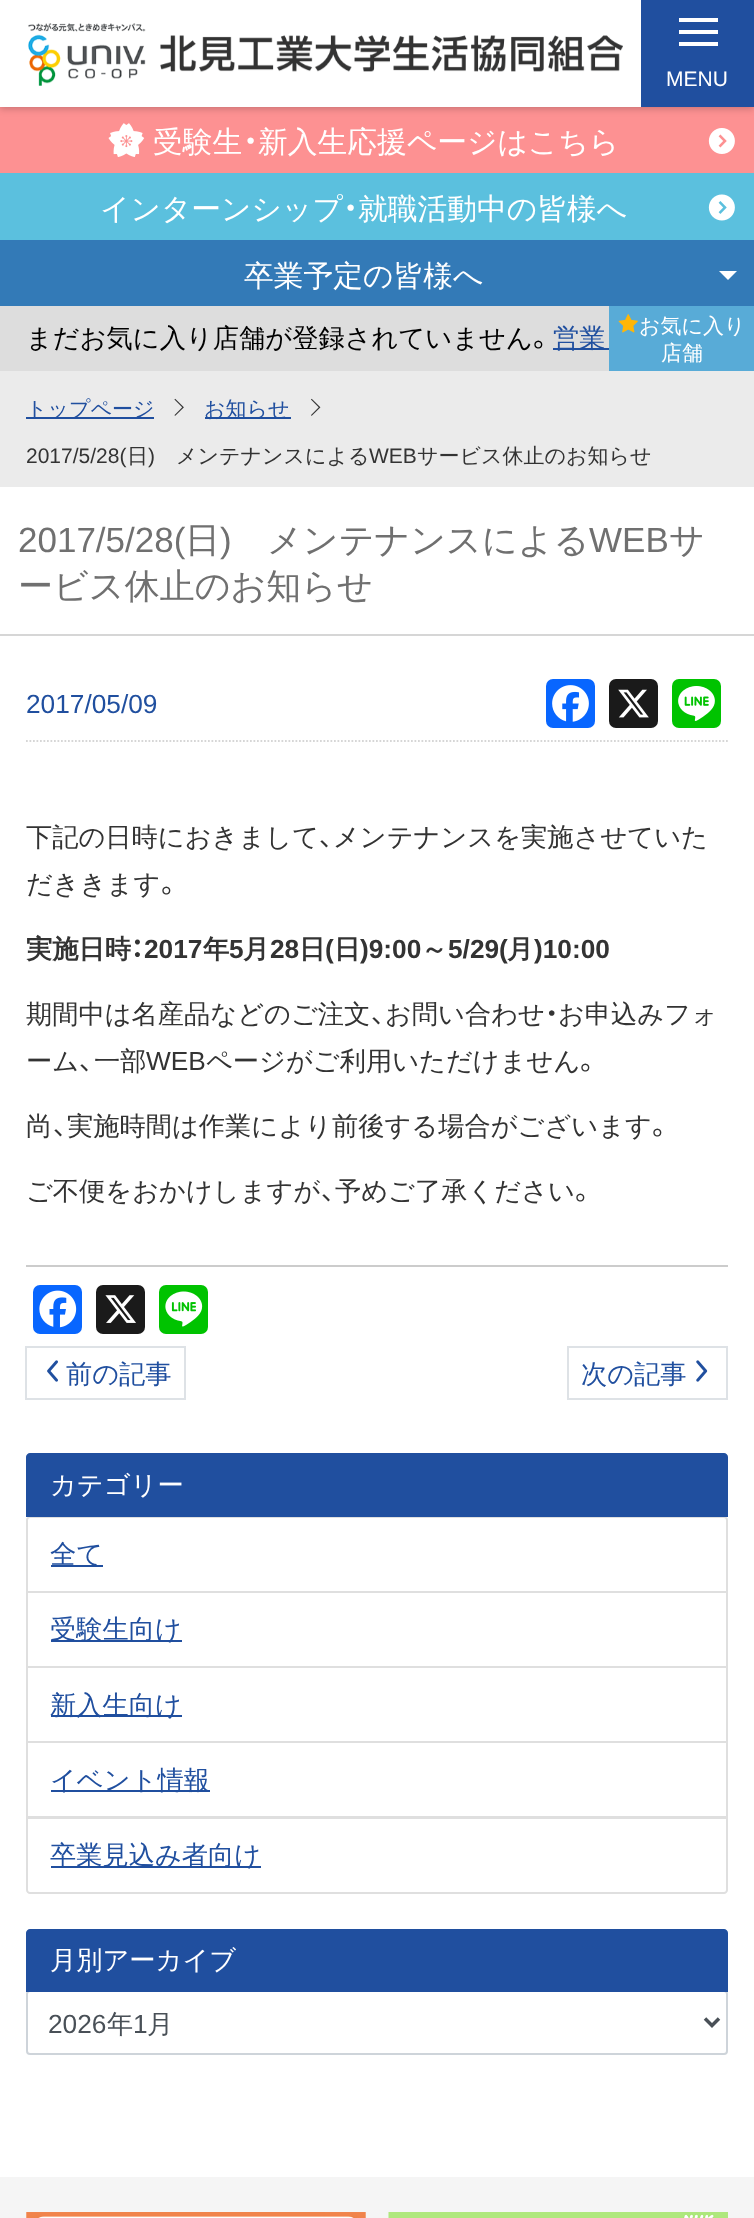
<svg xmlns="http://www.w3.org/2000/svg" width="754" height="2218">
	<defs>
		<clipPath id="clip1"><path d="M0 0H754V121H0ZM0 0H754V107H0Z" clip-rule="evenodd" /></clipPath>
	</defs>
	<rect width="100%" height="100%" fill="#FFFFFF" />
	<rect x="0" y="107" width="754" height="66" fill="#FD9192" />
	<g clip-path="url(#clip1)">
		<rect x="0" y="2" width="754" height="107" fill="#000000" fill-opacity="0.2" filter="blur(3.5px)" />
	</g>
	<rect x="641" y="0" width="113" height="107" fill="#204F9F" />
	<rect x="679" y="30" width="39" height="4" fill="#FFFFFF" />
	<rect x="679" y="18" width="39" height="4" fill="#FFFFFF" />
	<rect x="679" y="42" width="39" height="4" fill="#FFFFFF" />
	<text x="666" y="86" font-family="Liberation Sans" font-size="21" fill="#FFFFFF">MENU</text>
	<image x="28" y="23" width="595" height="63" href="assets/img1.png" />
	<image x="108" y="123" width="37" height="34" href="assets/img2.png" />
	<text x="153" y="152" font-family="WenQuanYi Zen Hei" font-size="29.75" font-weight="500" fill="#FFFFFF">受験生</text>
	<text x="243" y="152" font-family="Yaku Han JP" font-size="29.75" fill="#FFFFFF">・</text>
	<text x="258" y="152" font-family="WenQuanYi Zen Hei" font-size="29.75" font-weight="500" fill="#FFFFFF">新入生応援ページはこちら</text>
	<image x="708" y="128" width="27" height="26" href="assets/img3.png" />
	<rect x="0" y="173" width="754" height="67" fill="#5BC0DE" />
	<text x="100" y="219" font-family="WenQuanYi Zen Hei" font-size="29.75" font-weight="500" fill="#FFFFFF">インターンシップ</text>
	<text x="343" y="219" font-family="Yaku Han JP" font-size="29.75" fill="#FFFFFF">・</text>
	<text x="358" y="219" font-family="WenQuanYi Zen Hei" font-size="29.75" font-weight="500" fill="#FFFFFF">就職活動中の皆様へ</text>
	<image x="708" y="194" width="27" height="27" href="assets/img4.png" />
	<rect x="0" y="240" width="754" height="66" fill="#337AB7" />
	<text x="244" y="286" font-family="WenQuanYi Zen Hei" font-size="29.75" font-weight="500" fill="#FFFFFF">卒業予定の皆様へ</text>
	<path d="M719 271H737L728 280Z" fill="#FFFFFF" />
	<rect x="0" y="306" width="609" height="65" fill="#DDDDDD" />
	<text x="26" y="347" font-family="WenQuanYi Zen Hei" font-size="26.25" font-weight="500" fill="#000000">まだお気に入り店舗が登録されていません</text>
	<text x="533" y="347" font-family="Yaku Han JP" font-size="26.25" fill="#000000">。</text>
	<rect x="553" y="348" width="56" height="2" fill="#204F9F" />
	<text x="553" y="347" font-family="WenQuanYi Zen Hei" font-size="26.25" font-weight="500" fill="#204F9F">営業</text>
	<rect x="609" y="306" width="145" height="65" fill="#58ABD7" />
	<image x="618" y="314" width="20" height="19" href="assets/img5.png" />
	<g font-family="WenQuanYi Zen Hei" font-size="21" font-weight="500" fill="#FFFFFF">
		<text x="639" y="333">お気に入り</text>
		<text x="661" y="360">店舗</text>
	</g>
	<rect x="0" y="371" width="754" height="116" fill="#EBEBEB" />
	<rect x="26" y="417" width="128" height="2" fill="#204F9F" />
	<text x="26" y="416" font-family="WenQuanYi Zen Hei" font-size="21" font-weight="500" fill="#204F9F">トップページ</text>
	<image x="174" y="398" width="10" height="18" href="assets/img6.png" />
	<rect x="205" y="417" width="86" height="2" fill="#204F9F" />
	<text x="204" y="416" font-family="WenQuanYi Zen Hei" font-size="21" font-weight="500" fill="#204F9F">お知らせ</text>
	<image x="311" y="398" width="10" height="18" href="assets/img7.png" />
	<text x="26" y="463" font-family="Liberation Sans" font-size="21" fill="#333333">2017/5/28(</text>
	<text x="127" y="463" font-family="WenQuanYi Zen Hei" font-size="21" font-weight="500" fill="#333333">日</text>
	<text x="148" y="463" font-family="Liberation Sans" font-size="21" fill="#333333">)</text>
	<text x="176" y="463" font-family="WenQuanYi Zen Hei" font-size="21" font-weight="500" fill="#333333">メンテナンスによる</text>
	<text x="369" y="463" font-family="Liberation Sans" font-size="21" fill="#333333">WEB</text>
	<text x="417" y="463" font-family="WenQuanYi Zen Hei" font-size="21" font-weight="500" fill="#333333">サービス休止のお知らせ</text>
	<rect x="0" y="634" width="754" height="2" fill="#D6D6D6" />
	<text x="18" y="552" font-family="Liberation Sans" font-size="35" fill="#707070">2017/5/28(</text>
	<text x="185" y="552" font-family="WenQuanYi Zen Hei" font-size="35" font-weight="500" fill="#707070">日</text>
	<text x="220" y="552" font-family="Liberation Sans" font-size="35" fill="#707070">)</text>
	<text x="267" y="552" font-family="WenQuanYi Zen Hei" font-size="35" font-weight="500" fill="#707070">メンテナンスによる</text>
	<text x="589" y="552" font-family="Liberation Sans" font-size="35" fill="#707070">WEB</text>
	<g font-family="WenQuanYi Zen Hei" font-size="35" font-weight="500" fill="#707070">
		<text x="669" y="552">サ</text>
		<text x="18" y="598">ービス休止のお知らせ</text>
	</g>
	<path d="M26 741H728" fill="none" stroke="#D6D6D6" stroke-width="1.8" stroke-dasharray="1.75 1.75" />
	<text x="26" y="713" font-family="Liberation Sans" font-size="26.25" fill="#204F9F">2017/05/09</text>
	<rect x="546" y="679" width="49" height="49" rx="7" fill="#0866FF" />
	<image x="552" y="685" width="37" height="37" href="assets/img8.png" />
	<rect x="609" y="679" width="49" height="49" rx="7" fill="#1A1A1A" />
	<image x="618" y="689" width="31" height="29" href="assets/img9.png" />
	<rect x="672" y="679" width="49" height="49" rx="7" fill="#00C300" />
	<image x="678" y="686" width="37" height="35" href="assets/img10.png" />
	<text x="26" y="846" font-family="WenQuanYi Zen Hei" font-size="26.25" font-weight="500" fill="#333333">下記の日時におきまして</text>
	<text x="319" y="846" font-family="Yaku Han JP" font-size="26.25" fill="#333333">、</text>
	<g font-family="WenQuanYi Zen Hei" font-size="26.25" font-weight="500" fill="#333333">
		<text x="333" y="846">メンテナンスを実施させていた</text>
		<text x="26" y="893">だききます</text>
	</g>
	<text x="161" y="893" font-family="Yaku Han JP" font-size="26.25" fill="#333333">。</text>
	<text x="26" y="958" font-family="WenQuanYi Zen Hei" font-size="26.25" font-weight="700" fill="#333333">実施日時</text>
	<text x="131" y="958" font-family="Yaku Han JP" font-size="26.25" font-weight="700" fill="#333333">：</text>
	<text x="144" y="958" font-family="Liberation Sans" font-size="26.25" font-weight="700" fill="#333333">2017</text>
	<text x="203" y="958" font-family="WenQuanYi Zen Hei" font-size="26.25" font-weight="700" fill="#333333">年</text>
	<text x="229" y="958" font-family="Liberation Sans" font-size="26.25" font-weight="700" fill="#333333">5</text>
	<text x="243" y="958" font-family="WenQuanYi Zen Hei" font-size="26.25" font-weight="700" fill="#333333">月</text>
	<text x="270" y="958" font-family="Liberation Sans" font-size="26.25" font-weight="700" fill="#333333">28</text>
	<text x="299" y="958" font-family="WenQuanYi Zen Hei" font-size="26.25" font-weight="700" fill="#333333">日</text>
	<text x="325" y="958" font-family="Liberation Sans" font-size="26.25" font-weight="700" fill="#333333">(</text>
	<text x="334" y="958" font-family="WenQuanYi Zen Hei" font-size="26.25" font-weight="700" fill="#333333">日</text>
	<text x="360" y="958" font-family="Liberation Sans" font-size="26.25" font-weight="700" fill="#333333">)9:00</text>
	<text x="421" y="958" font-family="WenQuanYi Zen Hei" font-size="26.25" font-weight="700" fill="#333333">～</text>
	<text x="448" y="958" font-family="Liberation Sans" font-size="26.25" font-weight="700" fill="#333333">5/29(</text>
	<text x="507" y="958" font-family="WenQuanYi Zen Hei" font-size="26.25" font-weight="700" fill="#333333">月</text>
	<text x="534" y="958" font-family="Liberation Sans" font-size="26.25" font-weight="700" fill="#333333">)10:00</text>
	<g font-family="WenQuanYi Zen Hei" font-size="26.25" font-weight="500" fill="#333333">
		<text x="26" y="1023">期間中は名産品などのご注文</text>
		<text x="385" y="1023">お問い合わせ</text>
	</g>
	<text x="545" y="1023" font-family="Yaku Han JP" font-size="26.25" fill="#333333">・</text>
	<text x="558" y="1023" font-family="WenQuanYi Zen Hei" font-size="26.25" font-weight="500" fill="#333333">お申込みフォ</text>
	<text x="371" y="1023" font-family="Yaku Han JP" font-size="26.25" fill="#333333">、</text>
	<text x="26" y="1070" font-family="WenQuanYi Zen Hei" font-size="26.25" font-weight="500" fill="#333333">ーム</text>
	<text x="79" y="1070" font-family="Yaku Han JP" font-size="26.25" fill="#333333">、</text>
	<text x="94" y="1070" font-family="WenQuanYi Zen Hei" font-size="26.25" font-weight="500" fill="#333333">一部</text>
	<text x="146" y="1070" font-family="Liberation Sans" font-size="26.25" fill="#333333">WEB</text>
	<text x="206" y="1070" font-family="WenQuanYi Zen Hei" font-size="26.25" font-weight="500" fill="#333333">ページがご利用いただけません</text>
	<text x="580" y="1070" font-family="Yaku Han JP" font-size="26.25" fill="#333333">。</text>
	<text x="26" y="1135" font-family="WenQuanYi Zen Hei" font-size="26.25" font-weight="500" fill="#333333">尚</text>
	<text x="53" y="1135" font-family="Yaku Han JP" font-size="26.25" fill="#333333">、</text>
	<text x="67" y="1135" font-family="WenQuanYi Zen Hei" font-size="26.25" font-weight="500" fill="#333333">実施時間は作業により前後する場合がございます</text>
	<text x="652" y="1135" font-family="Yaku Han JP" font-size="26.25" fill="#333333">。</text>
	<text x="26" y="1200" font-family="WenQuanYi Zen Hei" font-size="26.25" font-weight="500" fill="#333333">ご不便をおかけしますが</text>
	<text x="321" y="1200" font-family="Yaku Han JP" font-size="26.25" fill="#333333">、</text>
	<text x="335" y="1200" font-family="WenQuanYi Zen Hei" font-size="26.25" font-weight="500" fill="#333333">予めご了承ください</text>
	<text x="575" y="1200" font-family="Yaku Han JP" font-size="26.25" fill="#333333">。</text>
	<rect x="26" y="1265" width="702" height="2" fill="#CCCCCC" />
	<rect x="33" y="1285" width="49" height="49" rx="7" fill="#0866FF" />
	<image x="39" y="1290" width="38" height="38" href="assets/img11.png" />
	<rect x="96" y="1285" width="49" height="49" rx="7" fill="#1A1A1A" />
	<image x="105" y="1295" width="31" height="28" href="assets/img12.png" />
	<rect x="159" y="1285" width="49" height="49" rx="7" fill="#00C300" />
	<image x="165" y="1291" width="38" height="36" href="assets/img13.png" />
	<rect x="26" y="1347" width="159" height="52" fill="none" stroke="#DEE2E6" stroke-width="2" />
	<image x="47" y="1360" width="11" height="22" href="assets/img14.png" />
	<text x="66" y="1383" font-family="WenQuanYi Zen Hei" font-size="26.25" font-weight="500" fill="#204F9F">前の記事</text>
	<rect x="568" y="1347" width="159" height="52" fill="none" stroke="#DEE2E6" stroke-width="2" />
	<text x="581" y="1383" font-family="WenQuanYi Zen Hei" font-size="26.25" font-weight="500" fill="#204F9F">次の記事</text>
	<image x="696" y="1360" width="12" height="22" href="assets/img15.png" />
	<path d="M30 1517H724C725.5 1517 727 1518.5 727 1520V1592H27V1520C27 1518.5 28.5 1517 30 1517Z" fill="none" stroke="#DFDFDF" stroke-width="2" />
	<path d="M30 1454H724C725.5 1454 727 1455.5 727 1457V1516H27V1457C27 1455.5 28.5 1454 30 1454Z" fill="#204F9F" stroke="#204F9F" stroke-width="2" />
	<text x="50" y="1494" font-family="WenQuanYi Zen Hei" font-size="26.25" font-weight="500" fill="#FFFFFF">カテゴリー</text>
	<rect x="51" y="1565" width="52" height="2" fill="#204F9F" />
	<text x="50" y="1563" font-family="WenQuanYi Zen Hei" font-size="26.25" font-weight="500" fill="#204F9F">全て</text>
	<rect x="27" y="1592" width="700" height="75" fill="none" stroke="#DFDFDF" stroke-width="2" />
	<rect x="51" y="1640" width="131" height="2" fill="#204F9F" />
	<text x="50" y="1638" font-family="WenQuanYi Zen Hei" font-size="26.25" font-weight="500" fill="#204F9F">受験生向け</text>
	<rect x="27" y="1667" width="700" height="75" fill="none" stroke="#DFDFDF" stroke-width="2" />
	<rect x="51" y="1715" width="131" height="2" fill="#204F9F" />
	<text x="50" y="1714" font-family="WenQuanYi Zen Hei" font-size="26.25" font-weight="500" fill="#204F9F">新入生向け</text>
	<rect x="27" y="1742" width="700" height="75" fill="none" stroke="#DFDFDF" stroke-width="2" />
	<rect x="51" y="1790" width="159" height="2" fill="#204F9F" />
	<text x="50" y="1789" font-family="WenQuanYi Zen Hei" font-size="26.25" font-weight="500" fill="#204F9F">イベント情報</text>
	<path d="M27 1818H727V1890C727 1891.5 725.5 1893 724 1893H30C28.5 1893 27 1891.5 27 1890Z" fill="#FFFFFF" stroke="#DFDFDF" stroke-width="2" />
	<rect x="51" y="1866" width="210" height="2" fill="#204F9F" />
	<text x="50" y="1864" font-family="WenQuanYi Zen Hei" font-size="26.25" font-weight="500" fill="#204F9F">卒業見込み者向け</text>
	<rect x="27" y="1991" width="700" height="63" rx="3" fill="none" stroke="#CED4DA" stroke-width="2" />
	<path d="M30 1930H724C725.5 1930 727 1931.5 727 1933V1991H27V1933C27 1931.5 28.5 1930 30 1930Z" fill="#204F9F" stroke="#204F9F" stroke-width="2" />
	<text x="50" y="1969" font-family="WenQuanYi Zen Hei" font-size="26.25" font-weight="500" fill="#FFFFFF">月別アーカイブ</text>
	<path d="M705 2018.5L712 2025.5L719 2018.5" fill="none" stroke="#495057" stroke-width="3.5" />
	<text x="48" y="2033" font-family="Liberation Sans" font-size="26.25" fill="#495057">2026</text>
	<text x="107" y="2033" font-family="WenQuanYi Zen Hei" font-size="26.25" font-weight="500" fill="#495057">年</text>
	<text x="133" y="2033" font-family="Liberation Sans" font-size="26.25" fill="#495057">1</text>
	<text x="147" y="2033" font-family="WenQuanYi Zen Hei" font-size="26.25" font-weight="500" fill="#495057">月</text>
	<rect x="0" y="2177" width="754" height="41" fill="#F5F5F5" />
	<image x="26" y="2212" width="340" height="6" href="assets/img16.png" />
	<image x="388" y="2212" width="340" height="6" href="assets/img17.png" />
</svg>
